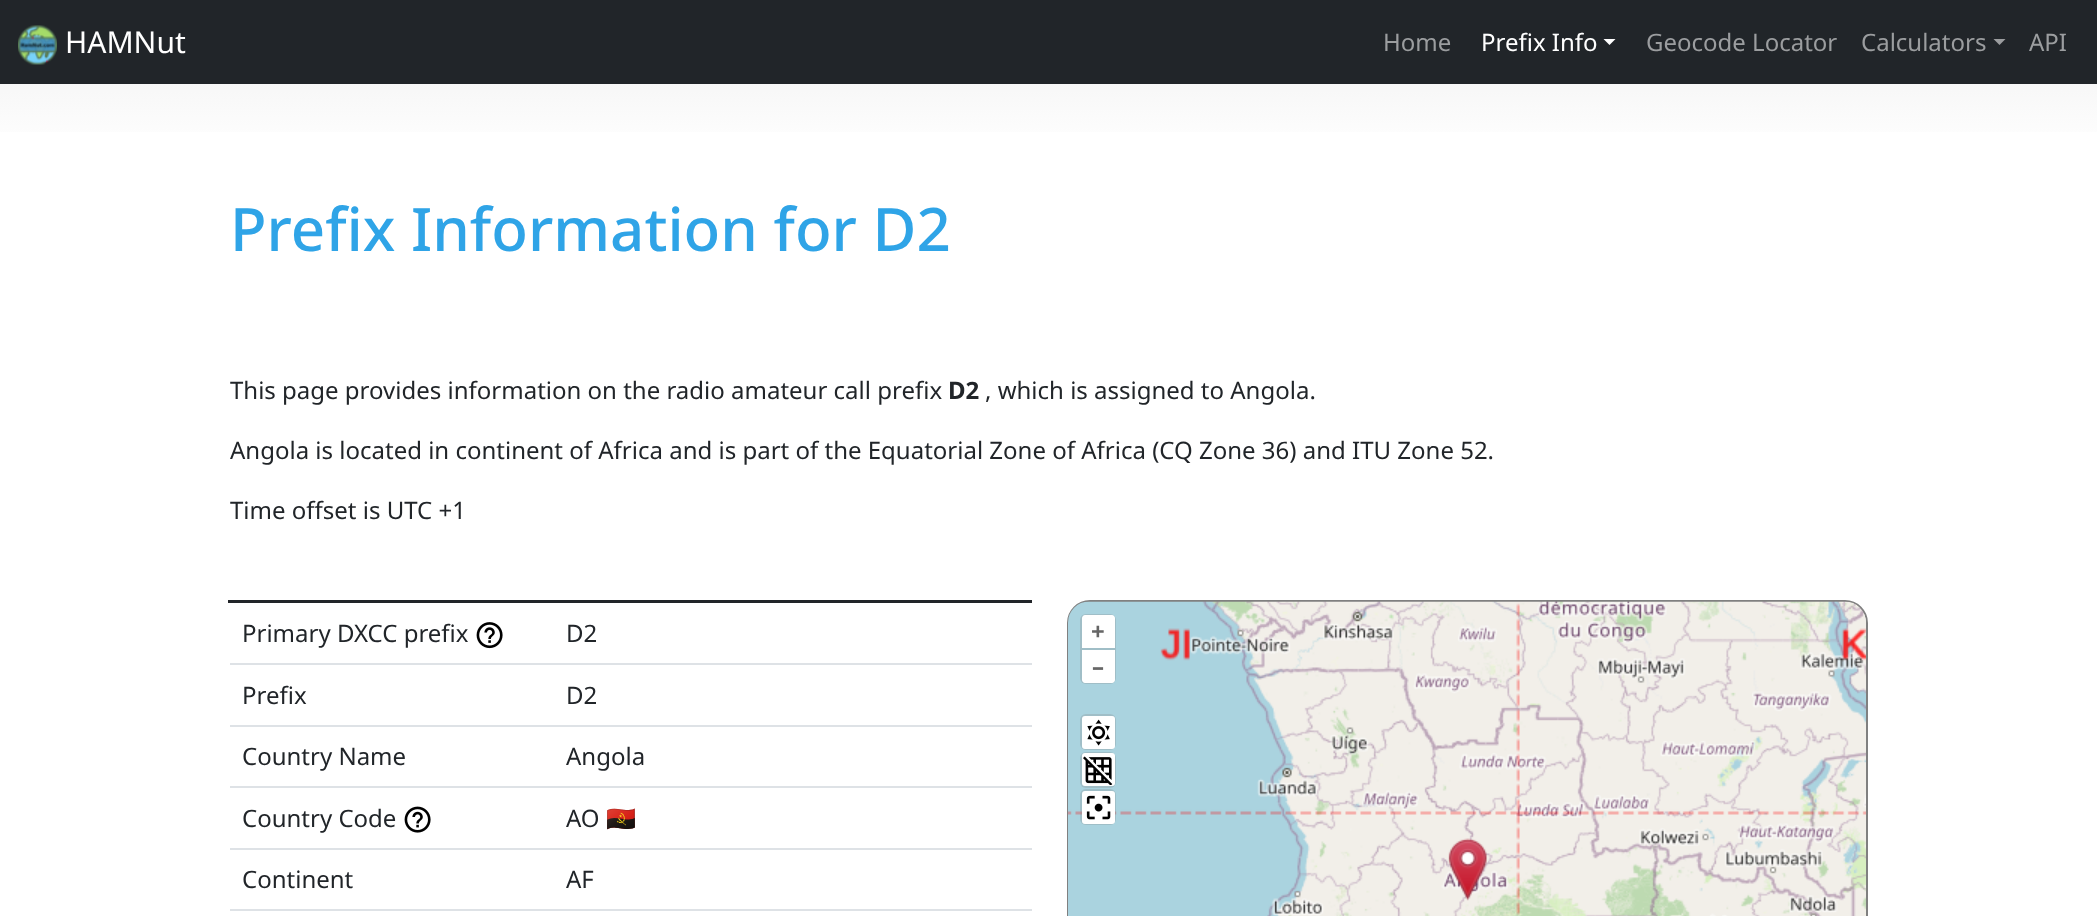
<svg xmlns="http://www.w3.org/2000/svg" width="2097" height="916">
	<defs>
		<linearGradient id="g1" gradientUnits="userSpaceOnUse" x1="1048" y1="0" x2="1049" y2="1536"><stop offset="0" stop-color="#EEEEEE" /><stop offset="0.1" stop-color="#FFFFFF" /><stop offset="1" stop-color="#FFFFFF" /></linearGradient>
	</defs>
	<rect width="100%" height="100%" fill="#FFFFFF" />
	<rect x="0" y="84" width="2097" height="48" fill="url(#g1)" />
	<rect x="0" y="0" width="2097" height="84" fill="#212529" />
	<image x="18" y="25" width="39" height="40" href="assets/img1.png" />
	<text x="65" y="53" font-family="Noto Sans" font-size="30" fill="#FFFFFF">HAMNut</text>
	<text x="1383" y="51" font-family="Noto Sans" font-size="24" fill="#9B9D9F">Home</text>
	<text x="1481" y="51" font-family="Noto Sans" font-size="24" fill="#FFFFFF">Prefix Info</text>
	<path d="M1603.5 39H1615.5L1609.5 45Z" fill="#FFFFFF" />
	<g font-family="Noto Sans" font-size="24" fill="#9B9D9F">
		<text x="1646" y="51">Geocode Locator</text>
		<text x="1861" y="51">Calculators</text>
	</g>
	<path d="M1993.5 39H2005.5L1999.5 45Z" fill="#9B9D9F" />
	<text x="2029" y="51" font-family="Noto Sans" font-size="24" fill="#9B9D9F">API</text>
	<text x="230" y="251" font-family="Noto Sans" font-size="60" font-weight="500" fill="#2FA4E7">Prefix Information for D2</text>
	<text x="230" y="399" font-family="Noto Sans" font-size="24" fill="#212529">This page provides information on the radio amateur call prefix</text>
	<text x="948" y="399" font-family="Noto Sans" font-size="24" font-weight="700" fill="#212529">D2</text>
	<g font-family="Noto Sans" font-size="24" fill="#212529">
		<text x="985" y="399">, which is assigned to Angola.</text>
		<text x="230" y="459">Angola is located in continent of Africa and is part of the Equatorial Zone of Africa (CQ Zone 36) and ITU Zone 52.</text>
		<text x="230" y="519">Time offset is UTC +1</text>
	</g>
	<rect x="228" y="600" width="804" height="3" fill="#212529" />
	<text x="242" y="642" font-family="Noto Sans" font-size="24" fill="#212529">Primary DXCC prefix</text>
	<image x="476" y="622" width="27" height="27" href="assets/img2.png" />
	<rect x="230" y="663" width="802" height="2" fill="#DEE2E6" />
	<g font-family="Noto Sans" font-size="24" fill="#212529">
		<text x="566" y="642">D2</text>
		<text x="242" y="704">Prefix</text>
	</g>
	<rect x="230" y="725" width="802" height="2" fill="#DEE2E6" />
	<g font-family="Noto Sans" font-size="24" fill="#212529">
		<text x="566" y="704">D2</text>
		<text x="242" y="765">Country Name</text>
	</g>
	<rect x="230" y="786" width="802" height="2" fill="#DEE2E6" />
	<g font-family="Noto Sans" font-size="24" fill="#212529">
		<text x="566" y="765">Angola</text>
		<text x="242" y="827">Country Code</text>
	</g>
	<image x="404" y="806" width="27" height="27" href="assets/img3.png" />
	<rect x="230" y="848" width="802" height="2" fill="#DEE2E6" />
	<text x="566" y="827" font-family="Noto Sans" font-size="24" fill="#212529">AO</text>
	<text x="606" y="827" font-family="Noto Color Emoji" font-size="24" fill="#212529">🇦🇴</text>
	<text x="242" y="888" font-family="Noto Sans" font-size="24" fill="#212529">Continent</text>
	<rect x="230" y="909" width="802" height="2" fill="#DEE2E6" />
	<text x="566" y="888" font-family="Noto Sans" font-size="24" fill="#212529">AF</text>
	<rect x="1068" y="601" width="799" height="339" rx="22" fill="none" stroke="#808080" stroke-width="2" />
	<image x="1068" y="601" width="798" height="315" href="assets/img4.png" />
	<rect x="1080" y="614" width="36" height="70" rx="6" fill="#A0BEC7" />
	<path d="M1085 615H1112C1113.5 615 1115 616.5 1115 618V648H1082V618C1082 616.5 1083.5 615 1085 615Z" fill="#FFFFFF" />
	<text x="1091" y="640" font-family="Noto Sans" font-size="24" font-weight="700" fill="#666666">+</text>
	<path d="M1082 650H1115V680C1115 681.5 1113.5 683 1112 683H1085C1083.5 683 1082 681.5 1082 680Z" fill="#FFFFFF" />
	<text x="1092" y="675" font-family="Noto Sans" font-size="24" font-weight="700" fill="#666666">–</text>
	<rect x="1080" y="714" width="36" height="36" rx="6" fill="#A0BEC7" />
	<rect x="1082" y="716" width="33" height="33" rx="3" fill="#FFFFFF" />
	<image x="1087" y="719" width="23" height="27" href="assets/img5.png" />
	<rect x="1080" y="752" width="36" height="36" rx="6" fill="#A0BEC7" />
	<rect x="1082" y="753" width="33" height="33" rx="3" fill="#FFFFFF" />
	<image x="1083" y="756" width="30" height="29" href="assets/img6.png" />
	<rect x="1080" y="789" width="36" height="36" rx="6" fill="#808080" fill-opacity="0.25" />
	<rect x="1082" y="791" width="33" height="33" rx="3" fill="#FFFFFF" />
	<image x="1086" y="795" width="25" height="25" href="assets/img7.png" />
</svg>
